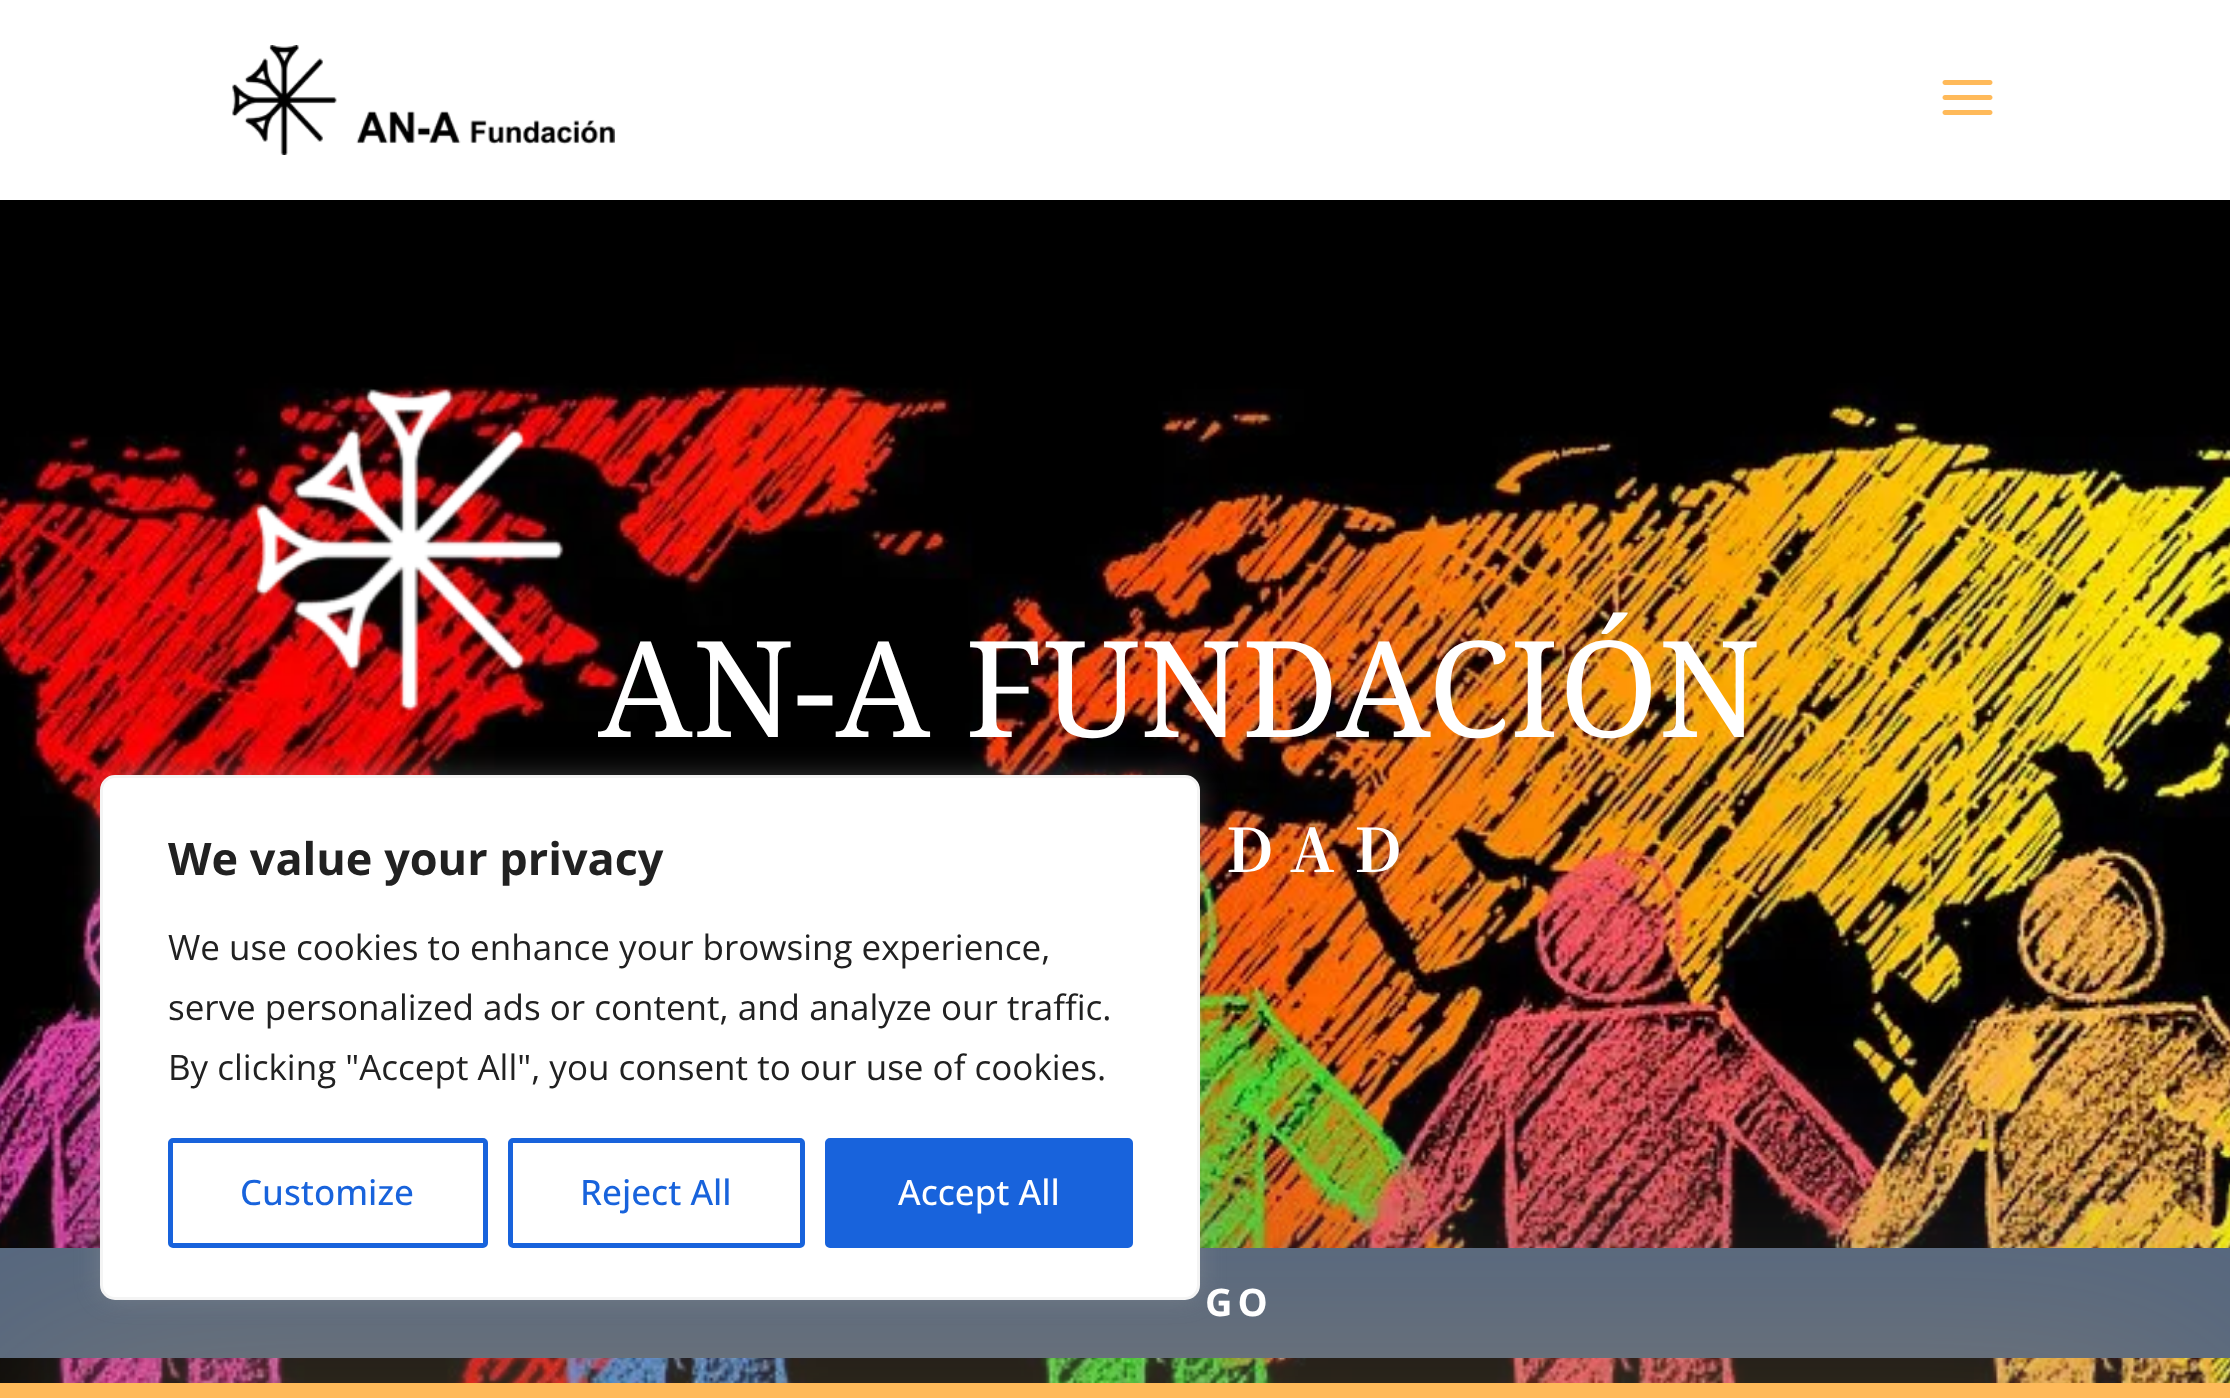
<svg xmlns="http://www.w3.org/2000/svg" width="2230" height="1398">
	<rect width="100%" height="100%" fill="#FFFFFF" />
	<image x="232" y="45" width="383" height="110" href="assets/img1.png" />
	<image x="1942" y="80" width="51" height="35" href="assets/img2.png" />
	<image x="0" y="200" width="2230" height="1183" href="assets/img3.png" />
	<image x="254" y="389" width="310" height="322" href="assets/img4.png" />
	<text x="598" y="737" font-family="Noto Serif" font-size="133.75" fill="#FFFFFF">AN-A FUNDACIÓN</text>
	<text x="1226" y="872" font-family="Noto Serif SC" font-size="60" font-weight="200" letter-spacing="20" fill="#FFFFFF">DAD</text>
	<rect x="15" y="1293" width="2200" height="80" fill="#55677F" fill-opacity="0.6" filter="blur(125px)" />
	<rect x="0" y="1248" width="2230" height="110" fill="#55677F" />
	<rect x="15" y="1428" width="2200" height="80" fill="#FFBA5A" fill-opacity="0.6" filter="blur(125px)" />
	<rect x="0" y="1383" width="2230" height="15" fill="#FFBA5A" />
	<text x="1205" y="1316" font-family="Open Sans" font-size="38" font-weight="700" letter-spacing="5" fill="#FFFFFF">GO</text>
	<rect x="100" y="773" width="1100" height="525" rx="15" fill="#ACABAB" fill-opacity="0.3" filter="blur(12.5px)" />
	<rect x="101.5" y="776.5" width="1097" height="522" rx="13.5" fill="#FFFFFF" stroke="#F4F4F4" stroke-width="3" />
	<text x="168" y="875" font-family="Open Sans" font-size="45" font-weight="700" fill="#212121">We value your privacy</text>
	<g font-family="Open Sans" font-size="35" fill="#212121">
		<text x="168" y="960">We use cookies to enhance your browsing experience,</text>
		<text x="168" y="1020">serve personalized ads or content, and analyze our traffic.</text>
		<text x="168" y="1080">By clicking "Accept All", you consent to our use of cookies.</text>
	</g>
	<rect x="170.5" y="1140.5" width="315" height="105" rx="2.5" fill="none" stroke="#1863DC" stroke-width="5" />
	<text x="240" y="1205" font-family="Open Sans" font-size="35" font-weight="500" fill="#1863DC">Customize</text>
	<rect x="510.5" y="1140.5" width="292" height="105" rx="2.5" fill="none" stroke="#1863DC" stroke-width="5" />
	<text x="580" y="1205" font-family="Open Sans" font-size="35" font-weight="500" fill="#1863DC">Reject All</text>
	<rect x="827.5" y="1140.5" width="303" height="105" rx="2.5" fill="#1863DC" stroke="#1863DC" stroke-width="5" />
	<text x="898" y="1205" font-family="Open Sans" font-size="35" font-weight="500" fill="#FFFFFF">Accept All</text>
</svg>
